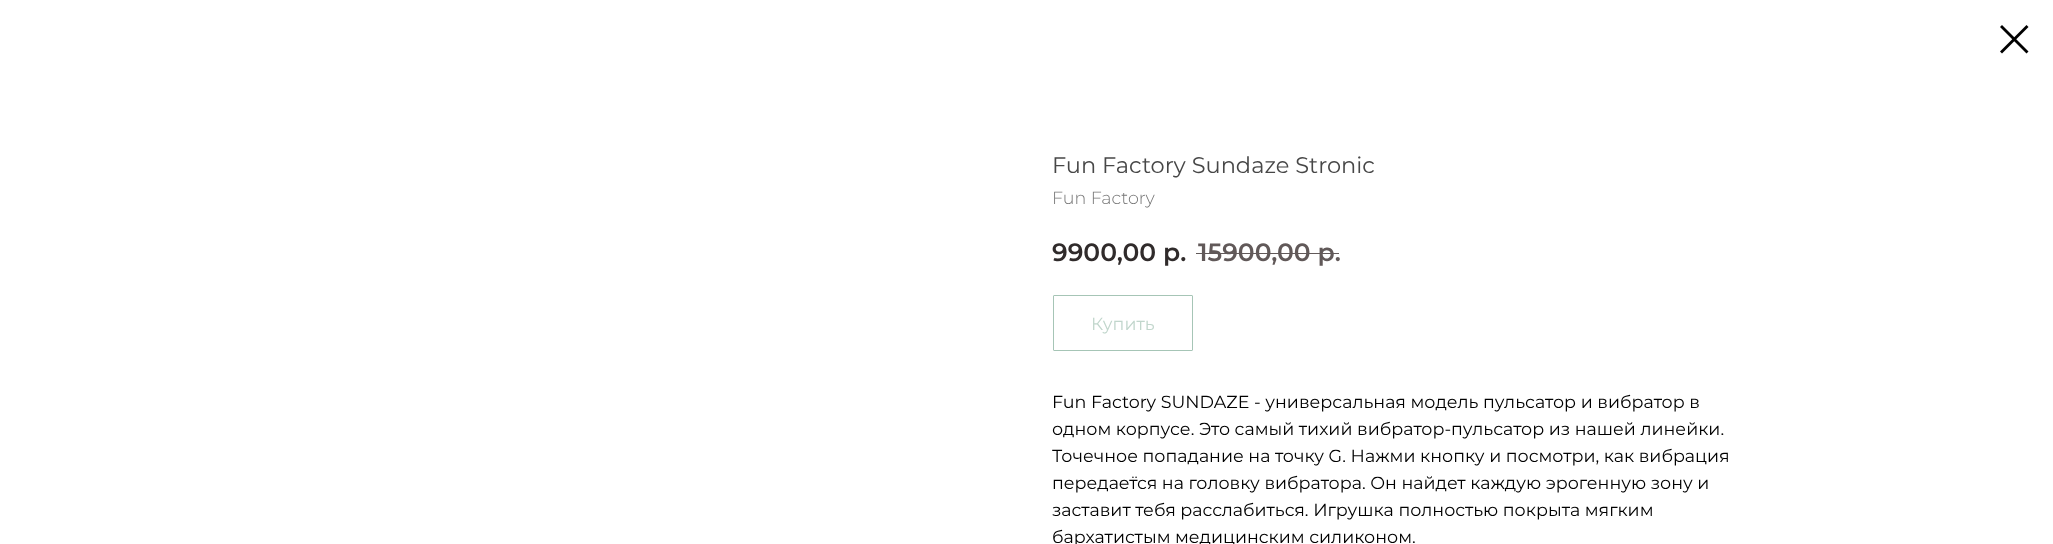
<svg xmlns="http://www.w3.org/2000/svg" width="2053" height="544">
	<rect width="100%" height="100%" fill="#FFFFFF" />
	<path d="M2000 27L2002 25L2028.5 51.5L2026.5 53.5Z" fill="#000000" fill-rule="evenodd" />
	<path d="M2026.5 25L2028.5 27L2002 53.5L2000 51.5Z" fill="#000000" fill-rule="evenodd" />
	<text x="1052" y="173" font-family="Montserrat" font-size="22.5" fill="#474747">Fun Factory Sundaze Stronic</text>
	<text x="1052" y="204" font-family="Montserrat" font-size="17.5" font-weight="300" fill="#777777">Fun Factory</text>
	<text x="1052" y="261" font-family="Montserrat" font-size="25" font-weight="600" fill="#302B2B">9900,00 р.</text>
	<text x="1198" y="261" font-family="Montserrat" font-size="25" font-weight="600" fill="#615959">15900,00 р.</text>
	<rect x="1196" y="253" width="143" height="1" fill="#615959" />
	<rect x="1053.5" y="295.5" width="139" height="55" rx="0.5" fill="none" stroke="#A6C5B6" />
	<text x="1091" y="330" font-family="Montserrat" font-size="17.5" fill="#C1D6CC">Купить</text>
	<g font-family="Montserrat" font-size="17.5" fill="#000000">
		<text x="1052" y="408">Fun Factory SUNDAZE - универсальная модель пульсатор и вибратор в</text>
		<text x="1052" y="435">одном корпусе. Это самый тихий вибратор-пульсатор из нашей линейки.</text>
		<text x="1052" y="462">Точечное попадание на точку G. Нажми кнопку и посмотри, как вибрация</text>
		<text x="1052" y="489">передаётся на головку вибратора. Он найдет каждую эрогенную зону и</text>
		<text x="1052" y="516">заставит тебя расслабиться. Игрушка полностью покрыта мягким</text>
		<text x="1052" y="543">бархатистым медицинским силиконом.</text>
	</g>
</svg>
